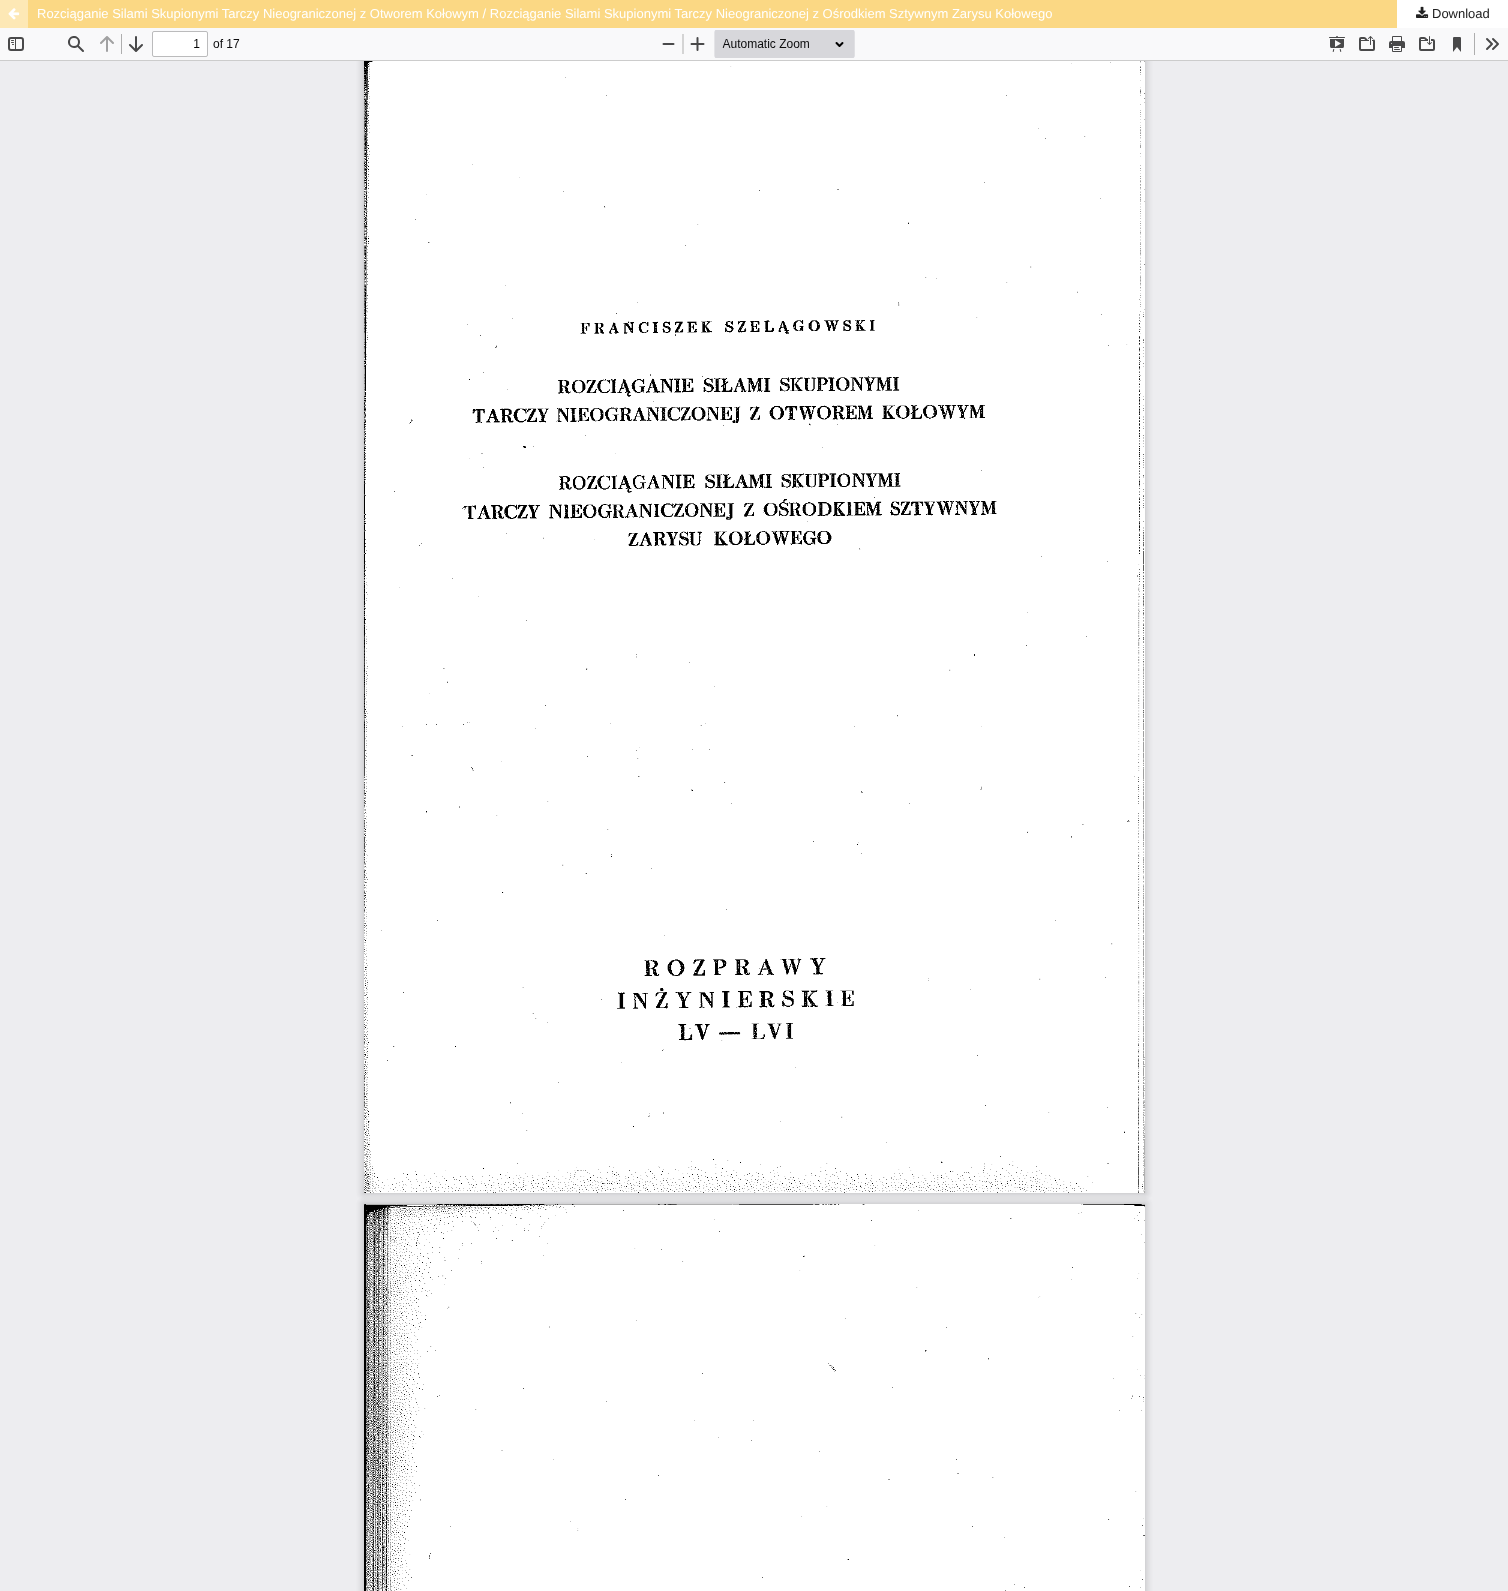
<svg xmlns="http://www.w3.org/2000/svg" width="1508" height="1591">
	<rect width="100%" height="100%" fill="#FFFFFF" />
	<rect x="28" y="0" width="1369" height="28" fill="#FBD884" />
	<rect x="0" y="0" width="28" height="28" fill="#FDE8B5" />
	<image x="8" y="8" width="12" height="12" href="assets/img1.png" />
	<text x="37" y="18" font-family="Liberation Sans" font-size="13" fill="#FFFFFF">Rozciąganie Silami Skupionymi Tarczy Nieograniczonej z Otworem Kołowym / Rozciąganie Silami Skupionymi Tarczy Nieograniczonej z Ośrodkiem Sztywnym Zarysu Kołowego</text>
	<image x="1416" y="6" width="13" height="12" href="assets/img2.png" />
	<text x="1432" y="18" font-family="Liberation Sans" font-size="13" fill="#212121">Download</text>
	<image x="0" y="28" width="1508" height="1563" href="assets/img3.png" />
</svg>
